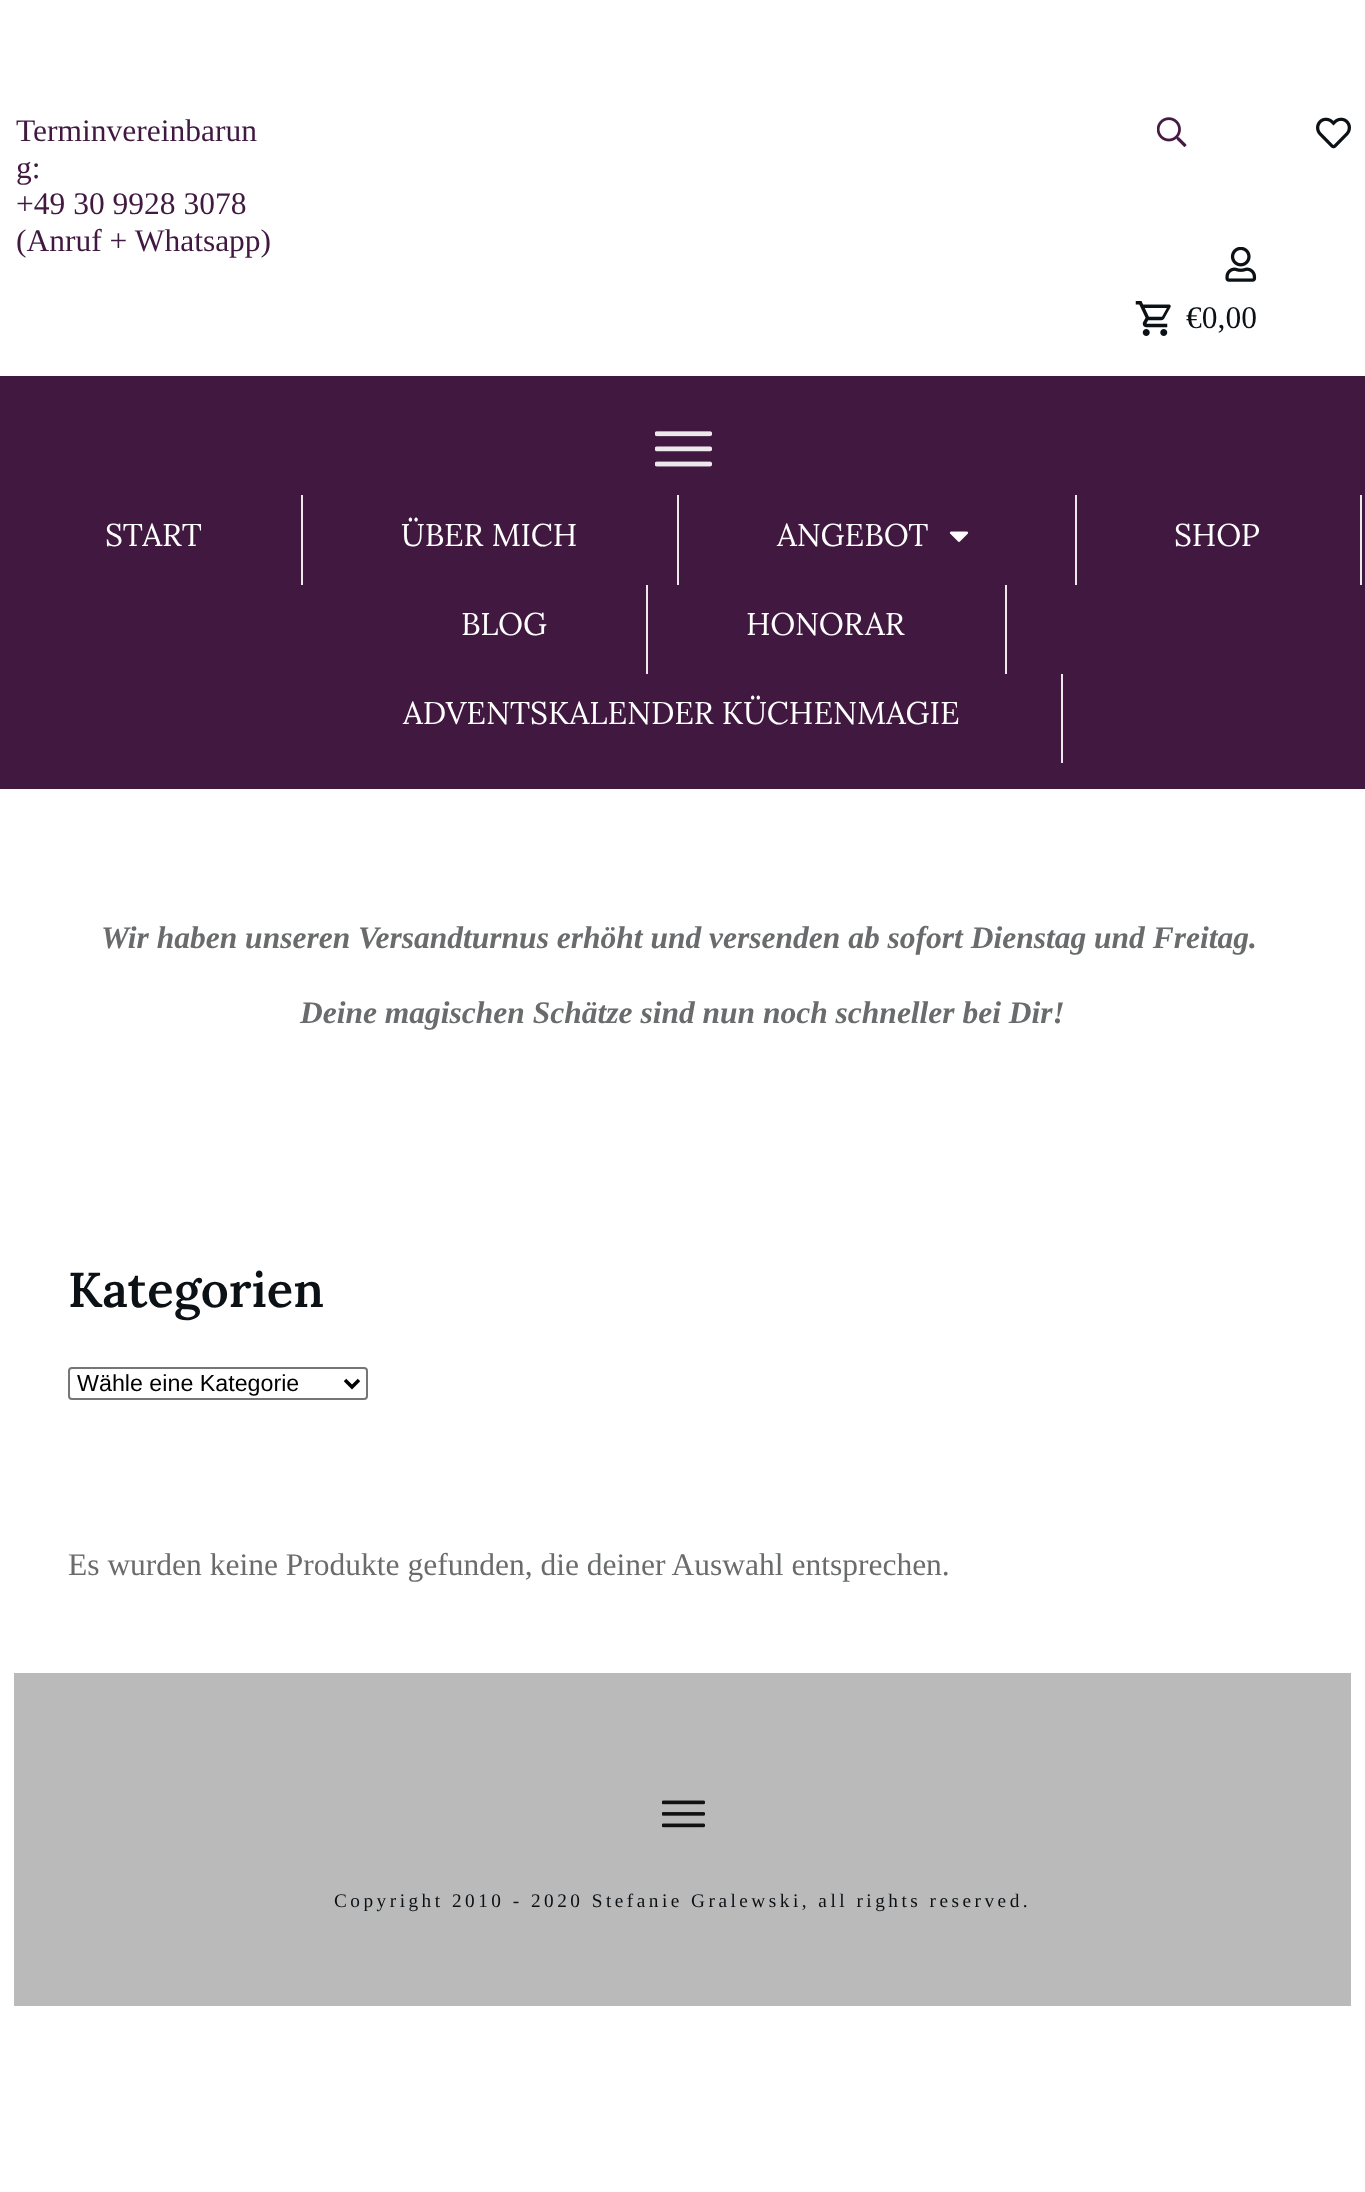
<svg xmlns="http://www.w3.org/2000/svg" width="1365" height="2192">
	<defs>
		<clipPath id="clip1"><rect x="105" y="504" width="96" height="63" /></clipPath>
	</defs>
	<rect width="100%" height="100%" fill="#FFFFFF" />
	<g font-family="Liberation Serif" font-size="31.5" fill="#401840">
		<text x="16" y="141">Terminvereinbarun</text>
		<text x="16" y="178">g:</text>
		<text x="16" y="214">+49 30 9928 3078</text>
		<text x="16" y="251">(Anruf + Whatsapp)</text>
	</g>
	<image x="1157" y="117" width="30" height="30" href="assets/img1.png" />
	<image x="1316" y="117" width="35" height="32" href="assets/img2.png" />
	<image x="1225" y="247" width="32" height="35" href="assets/img3.png" />
	<image x="1135" y="301" width="36" height="35" href="assets/img4.png" />
	<text x="1186" y="328" font-family="Liberation Serif" font-size="31.5" fill="#0C1115">€0,00</text>
	<rect x="0" y="376" width="1365" height="413" fill="#401840" />
	<image x="655" y="431" width="57" height="36" href="assets/img5.png" />
	<rect x="301" y="495" width="2" height="90" fill="#ECE8EC" />
	<g clip-path="url(#clip1)">
		<text x="105" y="546" font-family="Lora" font-size="31.5" fill="#FFFFFF">START</text>
	</g>
	<rect x="677" y="495" width="2" height="90" fill="#ECE8EC" />
	<text x="401" y="546" font-family="Lora" font-size="31.5" fill="#FFFFFF">ÜBER MICH</text>
	<rect x="1075" y="495" width="2" height="90" fill="#ECE8EC" />
	<text x="777" y="546" font-family="Lora" font-size="31.5" fill="#FFFFFF">ANGEBOT</text>
	<image x="949" y="531" width="20" height="11" href="assets/img6.png" />
	<rect x="1360" y="495" width="2" height="90" fill="#ECE8EC" />
	<text x="1174" y="546" font-family="Lora" font-size="31.5" fill="#FFFFFF">SHOP</text>
	<rect x="646" y="585" width="2" height="89" fill="#ECE8EC" />
	<text x="461" y="635" font-family="Lora" font-size="31.5" fill="#FFFFFF">BLOG</text>
	<rect x="1005" y="585" width="2" height="89" fill="#ECE8EC" />
	<text x="746" y="635" font-family="Lora" font-size="31.5" fill="#FFFFFF">HONORAR</text>
	<rect x="1061" y="674" width="2" height="89" fill="#ECE8EC" />
	<text x="403" y="724" font-family="Lora" font-size="31.5" fill="#FFFFFF">ADVENTSKALENDER KÜCHENMAGIE</text>
	<g font-family="Liberation Serif" font-size="31.5" font-weight="700" font-style="italic" fill="#6A6B6C">
		<text x="101" y="948">Wir haben unseren Versandturnus erhöht und versenden ab sofort Dienstag und Freitag.</text>
		<text x="300" y="1023">Deine magischen Schätze sind nun noch schneller bei Dir!</text>
	</g>
	<text x="68" y="1307" font-family="Lora" font-size="49" font-weight="600" fill="#0C1115">Kategorien</text>
	<rect x="69" y="1368" width="298" height="31" rx="3" fill="none" stroke="#767676" stroke-width="2" />
	<path d="M345 1380L352 1387L359 1380" fill="none" stroke="#000000" stroke-width="3.5" />
	<text x="77" y="1391" font-family="Liberation Sans" font-size="23.25" fill="#000000">Wähle eine Kategorie</text>
	<text x="68" y="1575" font-family="Liberation Serif" font-size="31.5" fill="#6A6B6C">Es wurden keine Produkte gefunden, die deiner Auswahl entsprechen.</text>
	<rect x="14" y="1673" width="1337" height="333" fill="#BABABA" />
	<image x="662" y="1800" width="43" height="28" href="assets/img7.png" />
	<text x="334" y="1907" font-family="Liberation Serif" font-size="19.25" letter-spacing="3.5" fill="#0C1115">Copyright 2010 - 2020 Stefanie Gralewski, all rights reserved.</text>
</svg>
